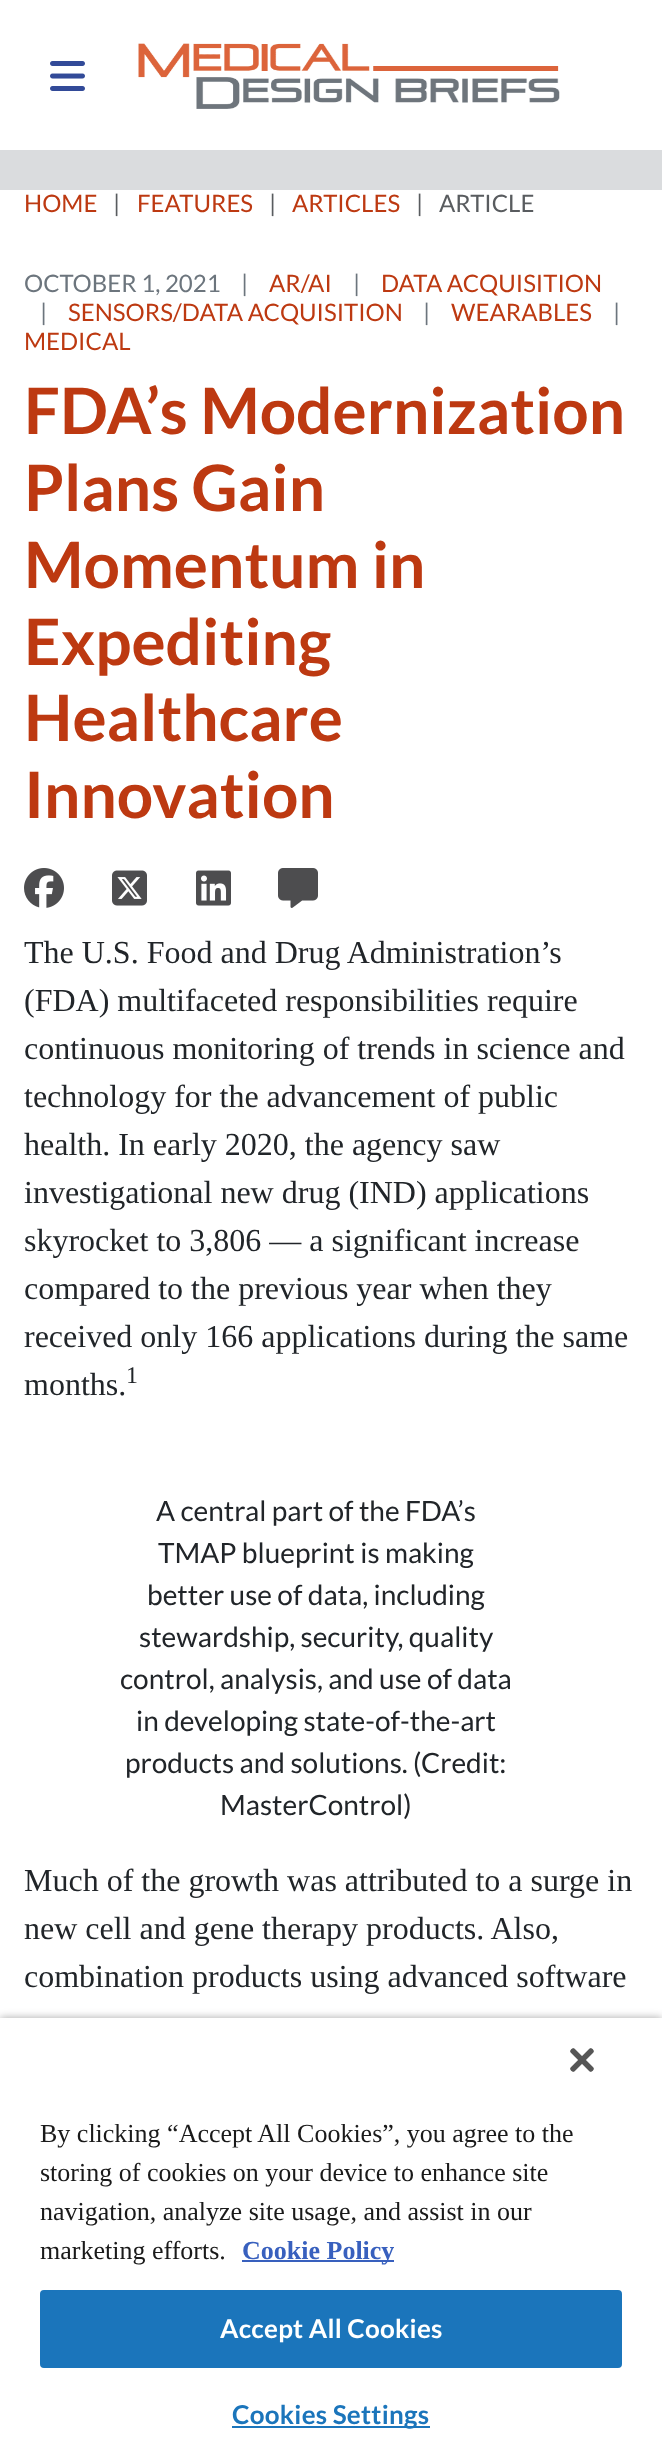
<svg xmlns="http://www.w3.org/2000/svg" width="662" height="2462">
	<rect width="100%" height="100%" fill="#FFFFFF" />
	<rect x="0" y="150" width="662" height="40" fill="#DADCDE" />
	<image x="50" y="61" width="35" height="30" href="assets/img1.png" />
	<image x="138" y="43" width="422" height="66" href="assets/img2.png" />
	<text x="24" y="212" font-family="Lato" font-size="24" fill="#BD3911">HOME</text>
	<text x="113" y="212" font-family="Lato" font-size="24" fill="#595C5F">|</text>
	<text x="137" y="212" font-family="Lato" font-size="24" fill="#BD3911">FEATURES</text>
	<text x="269" y="212" font-family="Lato" font-size="24" fill="#595C5F">|</text>
	<text x="292" y="212" font-family="Lato" font-size="24" fill="#BD3911">ARTICLES</text>
	<g font-family="Lato" font-size="24" fill="#595C5F">
		<text x="416" y="212">|</text>
		<text x="439" y="212">ARTICLE</text>
	</g>
	<g font-family="Lato" font-size="24" fill="#6C757D">
		<text x="24" y="292">OCTOBER 1, 2021</text>
		<text x="241" y="292">|</text>
	</g>
	<text x="269" y="292" font-family="Lato" font-size="24" fill="#BD3911">AR/AI</text>
	<text x="353" y="292" font-family="Lato" font-size="24" fill="#6C757D">|</text>
	<text x="381" y="292" font-family="Lato" font-size="24" fill="#BD3911">DATA ACQUISITION</text>
	<text x="40" y="321" font-family="Lato" font-size="24" fill="#6C757D">|</text>
	<text x="68" y="321" font-family="Lato" font-size="24" fill="#BD3911">SENSORS/DATA ACQUISITION</text>
	<text x="423" y="321" font-family="Lato" font-size="24" fill="#6C757D">|</text>
	<text x="451" y="321" font-family="Lato" font-size="24" fill="#BD3911">WEARABLES</text>
	<text x="613" y="321" font-family="Lato" font-size="24" fill="#6C757D">|</text>
	<text x="24" y="350" font-family="Lato" font-size="24" fill="#BD3911">MEDICAL</text>
	<g font-family="Lato" font-size="64" font-weight="700" fill="#BD3911">
		<text x="24" y="434">FDA’s Modernization</text>
		<text x="24" y="511">Plans Gain</text>
		<text x="24" y="588">Momentum in</text>
		<text x="24" y="665">Expediting</text>
		<text x="24" y="741">Healthcare</text>
		<text x="24" y="818">Innovation</text>
	</g>
	<image x="24" y="868" width="40" height="40" href="assets/img3.png" />
	<image x="112" y="870" width="35" height="36" href="assets/img4.png" />
	<image x="196" y="870" width="35" height="36" href="assets/img5.png" />
	<image x="278" y="868" width="40" height="40" href="assets/img6.png" />
	<g font-family="Liberation Serif" font-size="32" fill="#212529">
		<text x="24" y="963">The U.S. Food and Drug Administration’s</text>
		<text x="24" y="1011">(FDA) multifaceted responsibilities require</text>
		<text x="24" y="1059">continuous monitoring of trends in science and</text>
		<text x="24" y="1107">technology for the advancement of public</text>
		<text x="24" y="1155">health. In early 2020, the agency saw</text>
		<text x="24" y="1203">investigational new drug (IND) applications</text>
		<text x="24" y="1251">skyrocket to 3,806 — a significant increase</text>
		<text x="24" y="1299">compared to the previous year when they</text>
		<text x="24" y="1347">received only 166 applications during the same</text>
		<text x="24" y="1395">months.</text>
	</g>
	<text x="126" y="1383" font-family="Liberation Serif" font-size="24" fill="#212529">1</text>
	<g font-family="Lato" font-size="28" fill="#212529">
		<text x="156" y="1521">A central part of the FDA’s</text>
		<text x="158" y="1563">TMAP blueprint is making</text>
		<text x="147" y="1605">better use of data, including</text>
		<text x="139" y="1647">stewardship, security, quality</text>
		<text x="120" y="1689">control, analysis, and use of data</text>
		<text x="136" y="1731">in developing state-of-the-art</text>
		<text x="125" y="1773">products and solutions. (Credit:</text>
		<text x="220" y="1815">MasterControl)</text>
	</g>
	<g font-family="Liberation Serif" font-size="32" fill="#212529">
		<text x="24" y="1891">Much of the growth was attributed to a surge in</text>
		<text x="24" y="1939">new cell and gene therapy products. Also,</text>
		<text x="24" y="1987">combination products using advanced software</text>
	</g>
	<rect x="0" y="2018" width="662" height="444" fill="#000000" fill-opacity="0.35" filter="blur(4px)" />
	<rect x="0" y="2018" width="662" height="444" fill="#FFFFFF" />
	<image x="570" y="2048" width="24" height="24" href="assets/img7.png" />
	<g font-family="Liberation Serif" font-size="26" fill="#1A1A1A">
		<text x="40" y="2142">By clicking “Accept All Cookies”, you agree to the</text>
		<text x="40" y="2181">storing of cookies on your device to enhance site</text>
		<text x="40" y="2220">navigation, analyze site usage, and assist in our</text>
		<text x="40" y="2259">marketing efforts.</text>
	</g>
	<rect x="242" y="2260" width="152" height="2" fill="#3860BE" />
	<text x="242" y="2259" font-family="Liberation Serif" font-size="26" font-weight="700" fill="#3860BE">Cookie Policy</text>
	<rect x="41" y="2291" width="580" height="76" rx="3" fill="#1B75BB" stroke="#1B75BB" stroke-width="2" />
	<text x="220" y="2338" font-family="Lato" font-size="26" font-weight="700" letter-spacing="0.25" fill="#FFFFFF">Accept All Cookies</text>
	<rect x="232" y="2426" width="198" height="2" fill="#1B75BB" />
	<text x="232" y="2424" font-family="Lato" font-size="26" font-weight="700" letter-spacing="0.25" fill="#1B75BB">Cookies Settings</text>
</svg>
